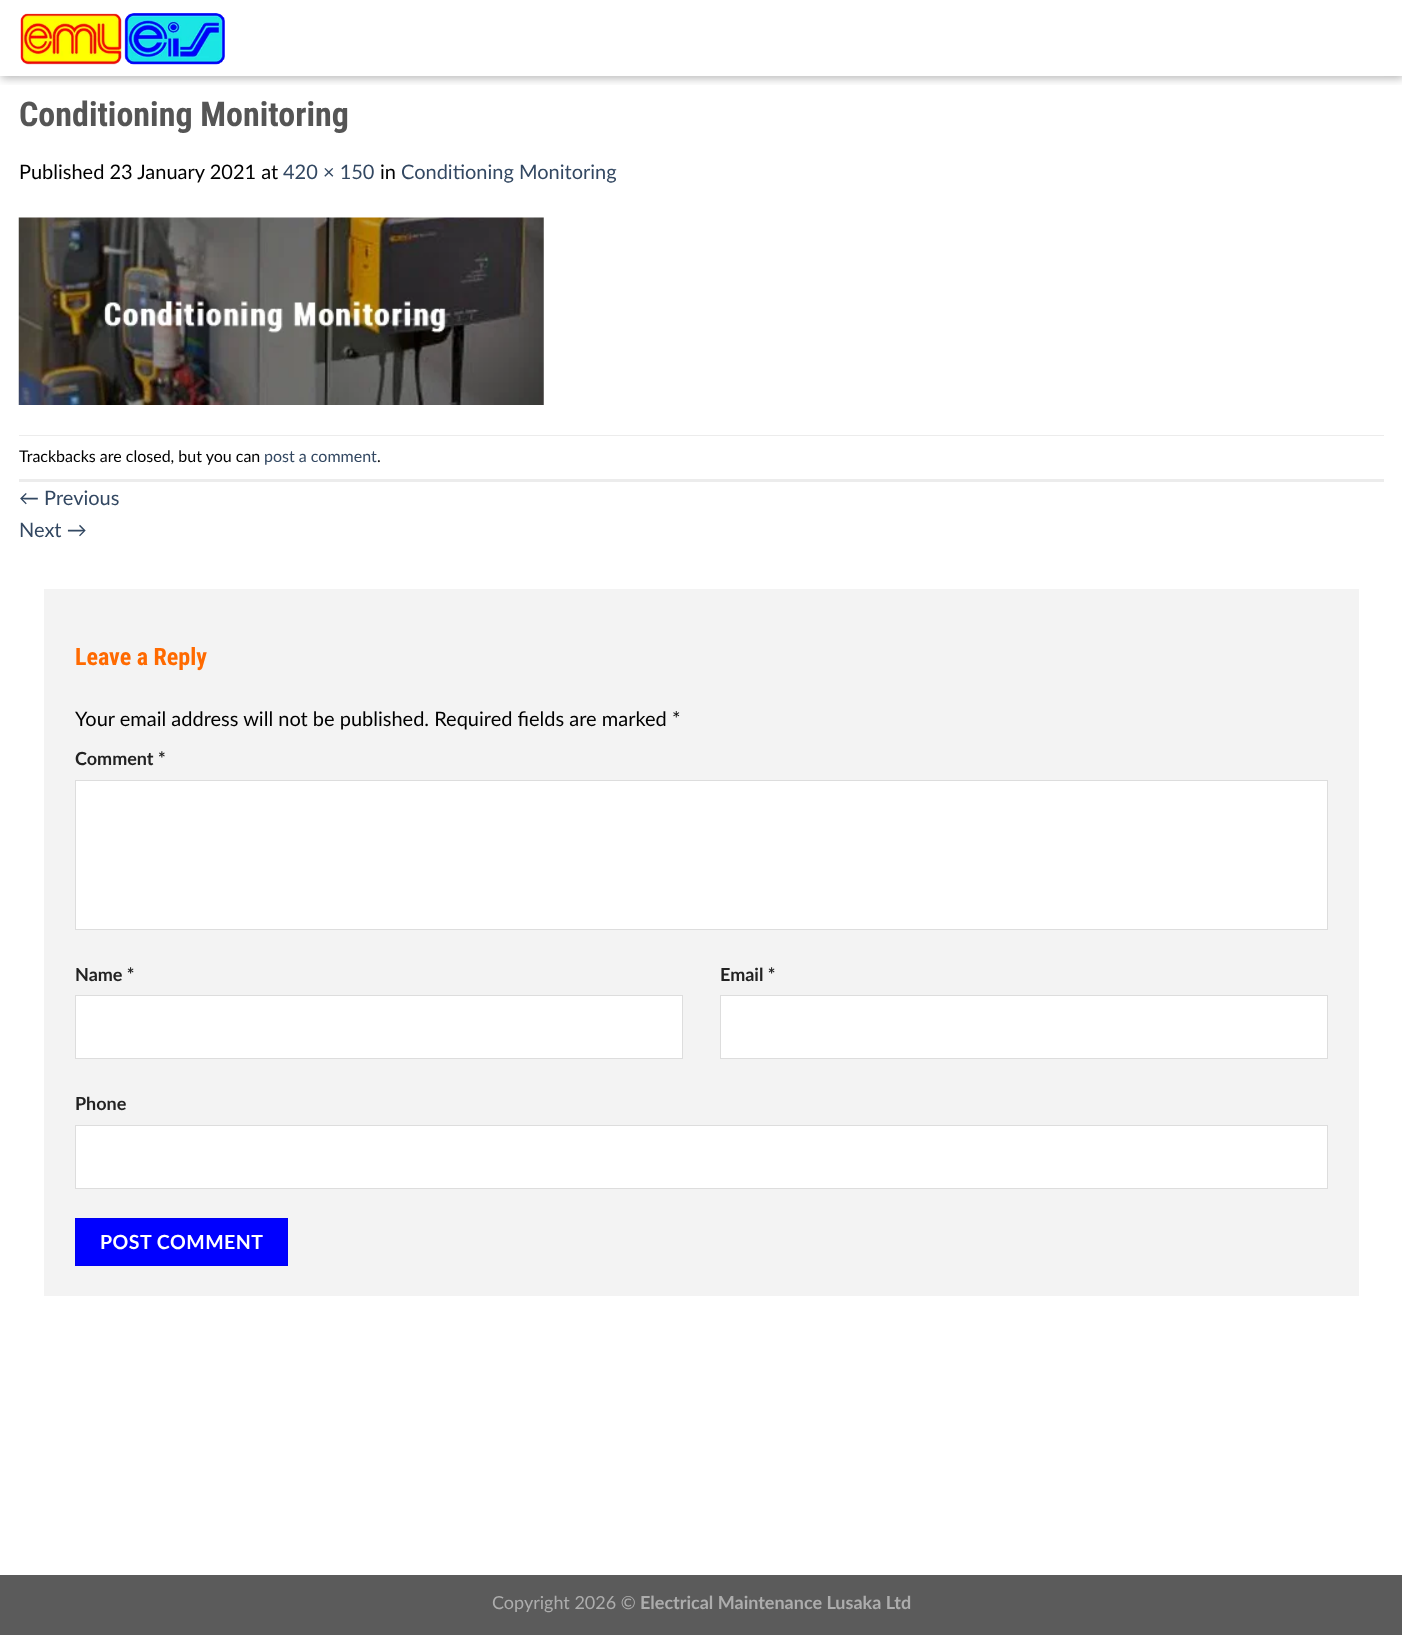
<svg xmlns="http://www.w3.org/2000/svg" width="1402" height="1635">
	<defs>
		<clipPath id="clip1"><rect x="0" y="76" width="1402" height="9" /></clipPath>
	</defs>
	<rect width="100%" height="100%" fill="#FFFFFF" />
	<g clip-path="url(#clip1)">
		<rect x="1" y="1" width="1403" height="77" fill="#000000" fill-opacity="0.3" filter="blur(5px)" />
	</g>
	<image x="20" y="13" width="205" height="52" href="assets/img1.png" />
	<rect x="19" y="76" width="1365" height="1" fill="#D1D1D1" />
	<text x="19" y="126" font-family="Roboto Condensed" font-size="34" font-weight="700" fill="#555555">Conditioning Monitoring</text>
	<text x="19" y="179" font-family="Lato" font-size="20" fill="#000000">Published 23 January 2021 at</text>
	<text x="283" y="179" font-family="Lato" font-size="20" fill="#334862">420 × 150</text>
	<text x="380" y="179" font-family="Lato" font-size="20" fill="#000000">in</text>
	<text x="401" y="179" font-family="Lato" font-size="20" fill="#334862">Conditioning Monitoring</text>
	<image x="18" y="217" width="526" height="188" href="assets/img2.png" />
	<rect x="19" y="435" width="1365" height="1" fill="#ECECEC" />
	<rect x="19" y="479" width="1365" height="3" fill="#ECECEC" />
	<text x="19" y="462" font-family="Lato" font-size="16" fill="#000000">Trackbacks are closed, but you can</text>
	<text x="264" y="462" font-family="Lato" font-size="16" fill="#334862">post a comment</text>
	<text x="377" y="462" font-family="Lato" font-size="16" fill="#000000">.</text>
	<g font-family="Lato" font-size="20" fill="#334862">
		<text x="19" y="505">← Previous</text>
		<text x="19" y="537">Next →</text>
	</g>
	<rect x="44" y="589" width="1315" height="707" fill="#F3F3F3" />
	<text x="75" y="665" font-family="Roboto Condensed" font-size="24" font-weight="700" fill="#FF6A00">Leave a Reply</text>
	<text x="75" y="726" font-family="Lato" font-size="20" fill="#000000">Your email address will not be published. Required fields are marked *</text>
	<text x="75" y="765" font-family="Lato" font-size="18" font-weight="700" fill="#222222">Comment *</text>
	<rect x="75.5" y="780.5" width="1252" height="149" fill="#FFFFFF" stroke="#DDDDDD" />
	<text x="75" y="981" font-family="Lato" font-size="18" font-weight="700" fill="#222222">Name *</text>
	<rect x="75.5" y="995.5" width="607" height="63" fill="#FFFFFF" stroke="#DDDDDD" />
	<text x="720" y="981" font-family="Lato" font-size="18" font-weight="700" fill="#222222">Email *</text>
	<rect x="720.5" y="995.5" width="607" height="63" fill="#FFFFFF" stroke="#DDDDDD" />
	<text x="75" y="1110" font-family="Lato" font-size="18" font-weight="700" fill="#222222">Phone</text>
	<rect x="75.5" y="1125.5" width="1252" height="63" fill="#FFFFFF" stroke="#DDDDDD" />
	<rect x="75.5" y="1218.5" width="212" height="47" fill="#0000FF" stroke="#0000F2" />
	<text x="100" y="1249" font-family="Lato" font-size="19.5" font-weight="700" letter-spacing="0.5" fill="#FFFFFF">POST COMMENT</text>
	<rect x="0" y="1575" width="1402" height="60" fill="#5B5B5B" />
	<text x="492" y="1609" font-family="Lato" font-size="18" fill="#ADADAD">Copyright 2026 ©</text>
	<text x="640" y="1609" font-family="Lato" font-size="18" font-weight="700" fill="#ADADAD">Electrical Maintenance Lusaka Ltd</text>
</svg>
